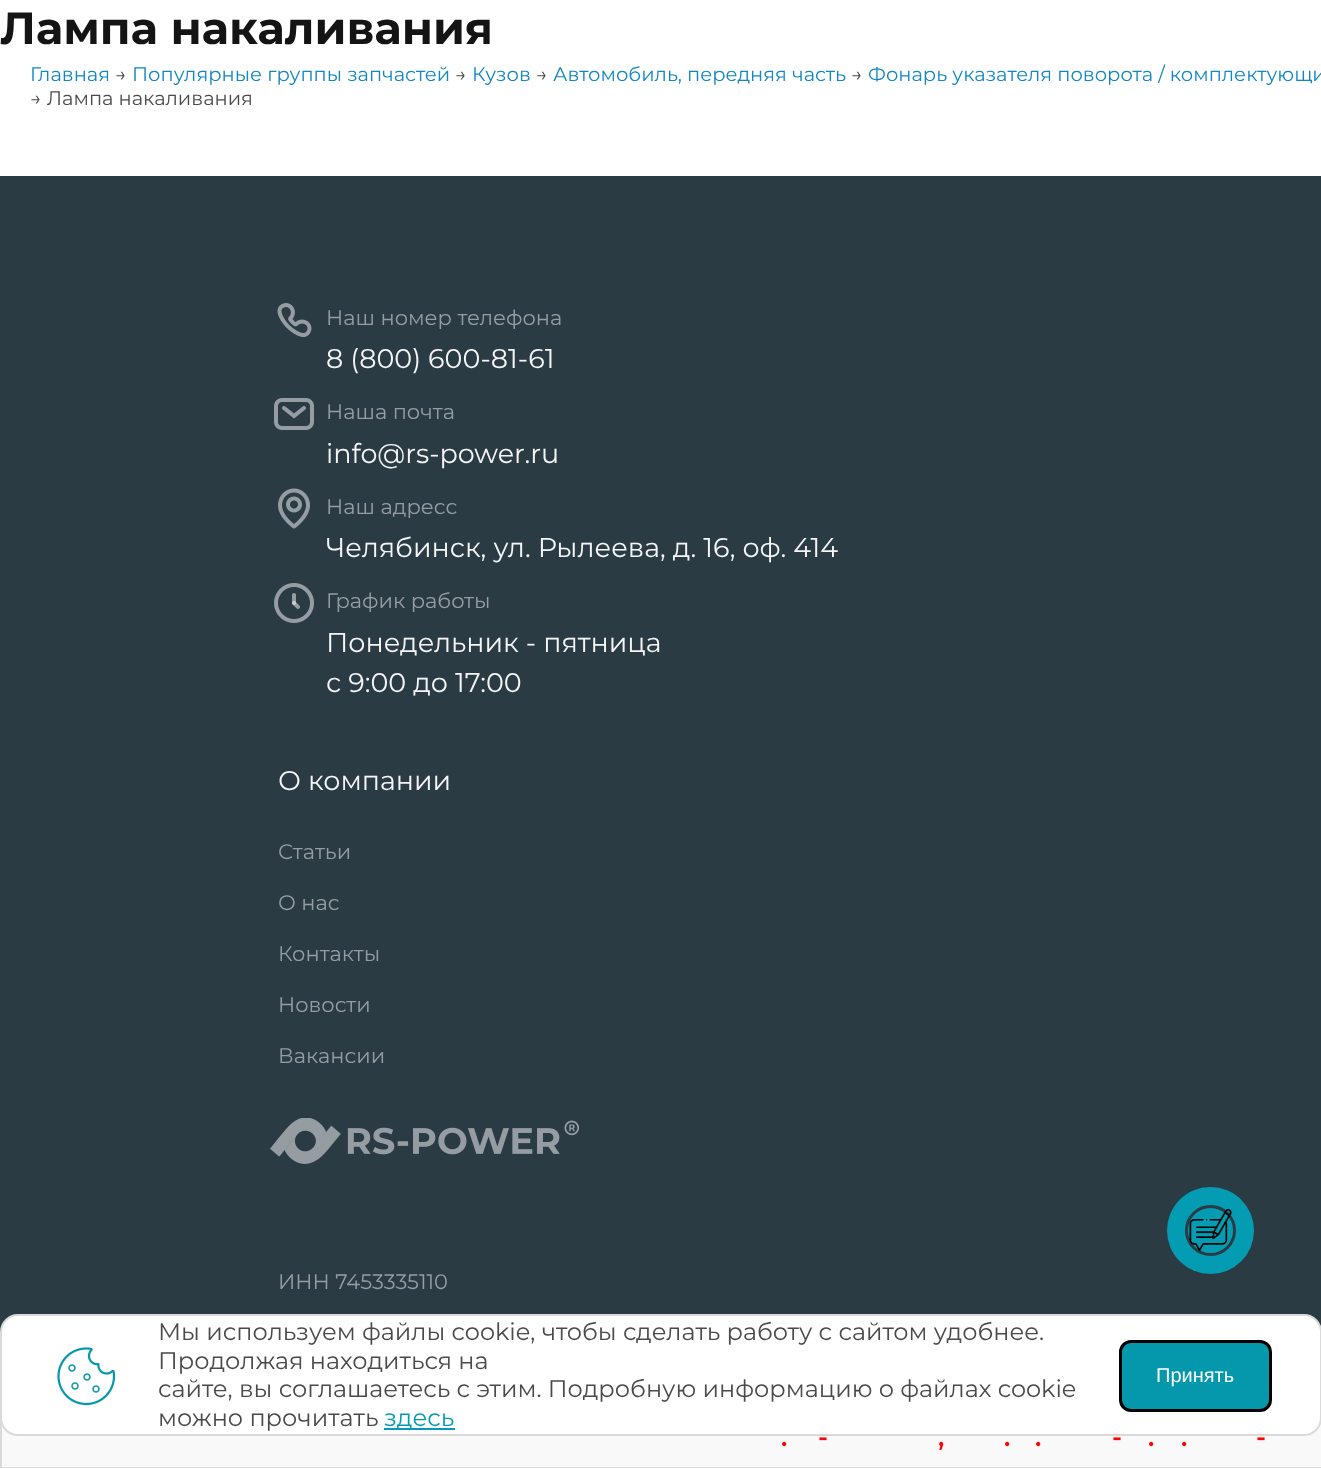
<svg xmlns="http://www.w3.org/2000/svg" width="1321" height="1468">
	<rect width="100%" height="100%" fill="#FFFFFF" />
	<text x="0" y="44" font-family="Montserrat" font-size="45" font-weight="700" fill="#141414">Лампа накаливания</text>
	<text x="30" y="81" font-family="Montserrat" font-size="19.5" fill="#1188C1">Главная</text>
	<text x="115" y="81" font-family="Montserrat" font-size="19.5" fill="#4A4A4A">→</text>
	<text x="132" y="81" font-family="Montserrat" font-size="19.5" fill="#1188C1">Популярные группы запчастей</text>
	<text x="455" y="81" font-family="Montserrat" font-size="19.5" fill="#4A4A4A">→</text>
	<text x="472" y="81" font-family="Montserrat" font-size="19.5" fill="#1188C1">Кузов</text>
	<text x="536" y="81" font-family="Montserrat" font-size="19.5" fill="#4A4A4A">→</text>
	<text x="553" y="81" font-family="Montserrat" font-size="19.5" fill="#1188C1">Автомобиль, передняя часть</text>
	<text x="851" y="81" font-family="Montserrat" font-size="19.5" fill="#4A4A4A">→</text>
	<text x="868" y="81" font-family="Montserrat" font-size="19.5" fill="#1188C1">Фонарь указателя поворота / комплектующи</text>
	<text x="30" y="105" font-family="Montserrat" font-size="19.5" fill="#4A4A4A">→ Лампа накаливания</text>
	<rect x="0" y="176" width="1321" height="1156" fill="#2B3B44" />
	<image x="277" y="303" width="35" height="34" href="assets/img1.png" />
	<text x="326" y="325" font-family="Montserrat" font-size="21" fill="#959DA2">Наш номер телефона</text>
	<text x="326" y="368" font-family="Montserrat" font-size="27" fill="#F4F5F6">8 (800) 600-81-61</text>
	<image x="274" y="398" width="40" height="32" href="assets/img2.png" />
	<text x="326" y="419" font-family="Montserrat" font-size="21" fill="#959DA2">Наша почта</text>
	<text x="326" y="463" font-family="Montserrat" font-size="27" fill="#F4F5F6">info@rs-power.ru</text>
	<image x="278" y="488" width="32" height="41" href="assets/img3.png" />
	<text x="326" y="514" font-family="Montserrat" font-size="21" fill="#959DA2">Наш адресс</text>
	<text x="326" y="557" font-family="Montserrat" font-size="27" fill="#F4F5F6">Челябинск, ул. Рылеева, д. 16, оф. 414</text>
	<image x="274" y="583" width="40" height="40" href="assets/img4.png" />
	<text x="326" y="608" font-family="Montserrat" font-size="21" fill="#959DA2">График работы</text>
	<g font-family="Montserrat" font-size="27" fill="#F4F5F6">
		<text x="326" y="652">Понедельник - пятница</text>
		<text x="326" y="692">с 9:00 до 17:00</text>
		<text x="278" y="790">О компании</text>
	</g>
	<g font-family="Montserrat" font-size="21" fill="#959DA2">
		<text x="278" y="859">Статьи</text>
		<text x="278" y="910">О нас</text>
		<text x="278" y="961">Контакты</text>
		<text x="278" y="1012">Новости</text>
		<text x="278" y="1063">Вакансии</text>
	</g>
	<image x="270" y="1118" width="309" height="46" href="assets/img5.png" />
	<text x="278" y="1289" font-family="Montserrat" font-size="21" fill="#959DA2">ИНН 7453335110</text>
	<rect x="1" y="1407" width="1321" height="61" fill="none" stroke="#DADADA" stroke-width="2" />
	<rect x="2" y="1424" width="1319" height="43" fill="#F9F9F9" />
	<g font-family="Montserrat" font-size="26" font-weight="600" fill="#FC0505">
		<text x="818" y="1446">-</text>
		<text x="1112" y="1446">-</text>
		<text x="1256" y="1446">-</text>
		<text x="781" y="1446">.</text>
		<text x="938" y="1446">,</text>
		<text x="1004" y="1446">.</text>
		<text x="1035" y="1446">.</text>
		<text x="1148" y="1446">.</text>
		<text x="1181" y="1446">.</text>
	</g>
	<circle cx="1210.5" cy="1230.5" r="43.5" fill="#049CB3" />
	<circle cx="1210.5" cy="1230.5" r="24" fill="none" stroke="#2B3B44" stroke-width="3" />
	<image x="1189" y="1209" width="43" height="42" href="assets/img6.png" />
	<rect x="1" y="1315" width="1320" height="120" rx="17" fill="#FFFFFF" stroke="#DADADA" stroke-width="2" />
	<image x="57" y="1347" width="59" height="59" href="assets/img7.png" />
	<g font-family="Montserrat" font-size="24" fill="#4A4A4A">
		<text x="158" y="1340">Мы используем файлы cookie, чтобы сделать работу с сайтом удобнее.</text>
		<text x="158" y="1369">Продолжая находиться на</text>
		<text x="158" y="1397">сайте, вы соглашаетесь с этим. Подробную информацию о файлах cookie</text>
		<text x="158" y="1426">можно прочитать</text>
	</g>
	<rect x="384" y="1428" width="71" height="2" fill="#049CB3" />
	<text x="384" y="1426" font-family="Montserrat" font-size="24" fill="#049CB3">здесь</text>
	<rect x="1120.5" y="1341.5" width="150" height="69" rx="10.5" fill="#0598AD" stroke="#000000" stroke-width="3" />
	<text x="1156" y="1382" font-family="Liberation Sans" font-size="20" fill="#FFFFFF">Принять</text>
</svg>
